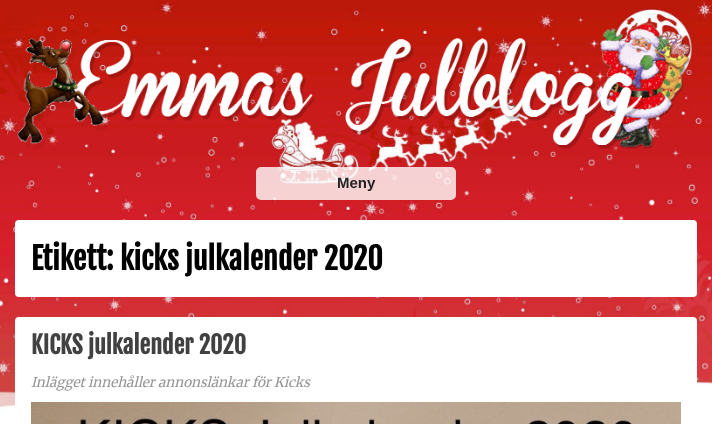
<svg xmlns="http://www.w3.org/2000/svg" width="712" height="424">
	<rect width="100%" height="100%" fill="#FFFFFF" />
	<image x="0" y="0" width="712" height="424" href="assets/img1.png" />
	<image x="17" y="23" width="673" height="126" href="assets/img2.png" />
	<rect x="256" y="167" width="200" height="33" rx="5" fill="#FFFFFF" fill-opacity="0.8" />
	<text x="337" y="188" font-family="Liberation Sans" font-size="15" font-weight="700" fill="#232323">Meny</text>
	<rect x="15" y="220" width="682" height="77" rx="4" fill="#FFFFFF" />
	<text x="31" y="270" font-family="Fjalla One" font-size="30" font-weight="700" fill="#000000">Etikett: kicks julkalender 2020</text>
	<rect x="15" y="317" width="682" height="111" rx="4" fill="#FFFFFF" />
	<text x="31" y="354" font-family="Fjalla One" font-size="24" font-weight="700" fill="#414141">KICKS julkalender 2020</text>
	<text x="31" y="387" font-family="Merriweather" font-size="13.5" font-style="italic" fill="#989898">Inlägget innehåller annonslänkar för Kicks</text>
	<image x="31" y="402" width="650" height="22" href="assets/img3.png" />
</svg>
